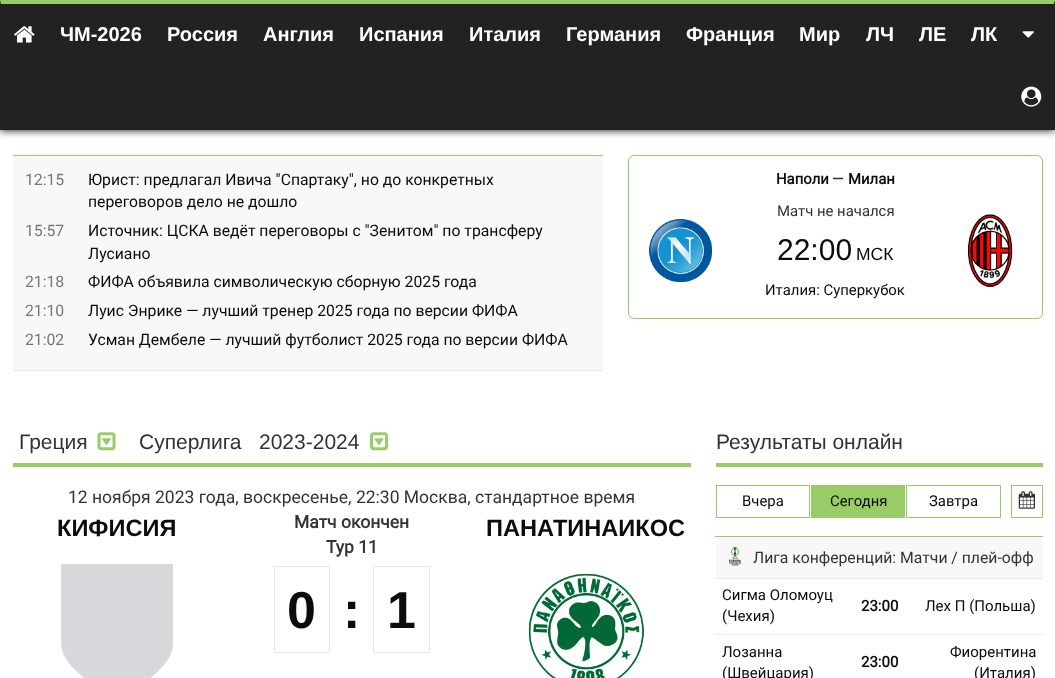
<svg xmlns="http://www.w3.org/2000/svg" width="1055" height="678">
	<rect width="100%" height="100%" fill="#FFFFFF" />
	<rect x="0" y="0" width="1055" height="130" fill="#000000" filter="blur(4.5px)" />
	<rect x="0" y="0" width="1055" height="130" fill="#222222" />
	<path d="M0 0H1055L1054 4H1Z" fill="#99CC66" />
	<image x="14" y="26" width="21" height="17" href="assets/img1.png" />
	<g font-family="Liberation Sans" font-size="20" font-weight="700" fill="#FFFFFF">
		<text x="60" y="41">ЧМ-2026</text>
		<text x="167" y="41">Россия</text>
		<text x="263" y="41">Англия</text>
		<text x="359" y="41">Испания</text>
		<text x="469" y="41">Италия</text>
		<text x="566" y="41">Германия</text>
		<text x="686" y="41">Франция</text>
		<text x="799" y="41">Мир</text>
		<text x="866" y="41">ЛЧ</text>
		<text x="919" y="41">ЛЕ</text>
		<text x="971" y="41">ЛК</text>
	</g>
	<image x="1022" y="31" width="12" height="7" href="assets/img2.png" />
	<image x="1021" y="86" width="21" height="21" href="assets/img3.png" />
	<rect x="13" y="156" width="590" height="214" fill="#F8F8F8" />
	<rect x="13" y="155" width="590" height="1" fill="#99CC66" />
	<rect x="13" y="370" width="590" height="1" fill="#E8E8E8" />
	<text x="25" y="185" font-family="Roboto" font-size="15.75" fill="#767676">12:15</text>
	<g font-family="Roboto" font-size="15.75" fill="#0C0C0C">
		<text x="88" y="185">Юрист: предлагал Ивича "Спартаку", но до конкретных</text>
		<text x="88" y="207">переговоров дело не дошло</text>
	</g>
	<text x="25" y="236" font-family="Roboto" font-size="15.75" fill="#767676">15:57</text>
	<g font-family="Roboto" font-size="15.75" fill="#0C0C0C">
		<text x="88" y="236">Источник: ЦСКА ведёт переговоры с "Зенитом" по трансферу</text>
		<text x="88" y="259">Лусиано</text>
	</g>
	<text x="25" y="287" font-family="Roboto" font-size="15.75" fill="#767676">21:18</text>
	<text x="88" y="287" font-family="Roboto" font-size="15.75" fill="#0C0C0C">ФИФА объявила символическую сборную 2025 года</text>
	<text x="25" y="316" font-family="Roboto" font-size="15.75" fill="#767676">21:10</text>
	<text x="88" y="316" font-family="Roboto" font-size="15.75" fill="#0C0C0C">Луис Энрике — лучший тренер 2025 года по версии ФИФА</text>
	<text x="25" y="345" font-family="Roboto" font-size="15.75" fill="#767676">21:02</text>
	<text x="88" y="345" font-family="Roboto" font-size="15.75" fill="#0C0C0C">Усман Дембеле — лучший футболист 2025 года по версии ФИФА</text>
	<rect x="628.5" y="155.5" width="414" height="163" rx="5.5" fill="none" stroke="#99CC66" />
	<text x="776" y="184" font-family="Roboto" font-size="14.9" font-weight="700" fill="#0C0C0C">Наполи</text>
	<text x="832" y="184" font-family="Roboto" font-size="14.9" font-weight="700" fill="#333333">—</text>
	<text x="848" y="184" font-family="Roboto" font-size="14.9" font-weight="700" fill="#0C0C0C">Милан</text>
	<image x="649" y="219" width="63" height="63" href="assets/img4.png" />
	<text x="777" y="216" font-family="Roboto" font-size="14.9" fill="#333333">Матч не начался</text>
	<text x="777" y="260" font-family="Liberation Sans" font-size="30" fill="#0C0C0C">22:00</text>
	<text x="856" y="260" font-family="Liberation Sans" font-size="17.5" fill="#0C0C0C">МСК</text>
	<text x="765" y="295" font-family="Roboto" font-size="14.9" fill="#0C0C0C">Италия: Суперкубок</text>
	<image x="968" y="214" width="45" height="73" href="assets/img5.png" />
	<rect x="13" y="463" width="678" height="4" fill="#99CC66" />
	<text x="19" y="449" font-family="Arimo" font-size="21" fill="#333333">Греция</text>
	<image x="97" y="432" width="19" height="19" href="assets/img6.png" />
	<g font-family="Arimo" font-size="21" fill="#333333">
		<text x="139" y="449">Суперлига</text>
		<text x="259" y="449">2023-2024</text>
	</g>
	<image x="370" y="432" width="18" height="19" href="assets/img7.png" />
	<text x="68" y="503" font-family="Roboto" font-size="17.5" fill="#333333">12 ноября 2023 года, воскресенье, 22:30 Москва, стандартное время</text>
	<text x="57" y="536" font-family="Liberation Sans" font-size="23.6" font-weight="700" fill="#0C0C0C">КИФИСИЯ</text>
	<image x="61" y="564" width="112" height="114" href="assets/img8.png" />
	<g font-family="Roboto" font-size="17.5" font-weight="700" fill="#333333">
		<text x="294" y="528">Матч окончен</text>
		<text x="326" y="553">Тур 11</text>
	</g>
	<rect x="274.5" y="566.5" width="55" height="86" fill="none" stroke="#E8E8E8" />
	<g font-family="Liberation Sans" font-size="52" font-weight="700" fill="#0C0C0C">
		<text x="287" y="628">0</text>
		<text x="343" y="628">:</text>
	</g>
	<rect x="373.5" y="566.5" width="56" height="86" fill="none" stroke="#E8E8E8" />
	<text x="387" y="628" font-family="Liberation Sans" font-size="52" font-weight="700" fill="#0C0C0C">1</text>
	<text x="486" y="536" font-family="Liberation Sans" font-size="23.6" font-weight="700" fill="#0C0C0C">ПАНАТИНАИКОС</text>
	<image x="528" y="573" width="116" height="105" href="assets/img9.png" />
	<rect x="716" y="463" width="327" height="4" fill="#99CC66" />
	<text x="716" y="449" font-family="Arimo" font-size="21" fill="#333333">Результаты онлайн</text>
	<rect x="716.5" y="485.5" width="93" height="32" fill="none" stroke="#99CC66" />
	<text x="742" y="506" font-family="Roboto" font-size="14.9" fill="#0C0C0C">Вчера</text>
	<rect x="811" y="485" width="94" height="33" fill="#99CC66" />
	<text x="830" y="506" font-family="Roboto" font-size="14.9" fill="#0C0C0C">Сегодня</text>
	<rect x="906.5" y="485.5" width="94" height="32" fill="none" stroke="#99CC66" />
	<text x="929" y="506" font-family="Roboto" font-size="14.9" fill="#0C0C0C">Завтра</text>
	<rect x="1011.5" y="485.5" width="31" height="32" fill="none" stroke="#99CC66" />
	<image x="1018" y="491" width="17" height="18" href="assets/img10.png" />
	<rect x="716" y="538" width="327" height="40" fill="#F8F8F8" />
	<rect x="715" y="536" width="328" height="1" fill="#99CC66" />
	<rect x="715" y="578" width="328" height="1" fill="#E8E8E8" />
	<image x="729" y="547" width="12" height="19" href="assets/img11.png" />
	<text x="753" y="563" font-family="Roboto" font-size="15.75" fill="#333333">Лига конференций: Матчи / плей-офф</text>
	<g font-family="Roboto" font-size="15" fill="#0C0C0C">
		<text x="722" y="600">Сигма Оломоуц</text>
		<text x="722" y="621">(Чехия)</text>
	</g>
	<text x="861" y="611" font-family="Roboto" font-size="15" font-weight="700" fill="#0C0C0C">23:00</text>
	<rect x="715" y="634" width="328" height="1" fill="#EEEEEE" />
	<g font-family="Roboto" font-size="15" fill="#0C0C0C">
		<text x="925" y="611">Лех П (Польша)</text>
		<text x="722" y="657">Лозанна</text>
		<text x="722" y="678">(Швейцария)</text>
	</g>
	<text x="861" y="667" font-family="Roboto" font-size="15" font-weight="700" fill="#0C0C0C">23:00</text>
	<g font-family="Roboto" font-size="15" fill="#0C0C0C">
		<text x="950" y="657">Фиорентина</text>
		<text x="974" y="678">(Италия)</text>
	</g>
</svg>
